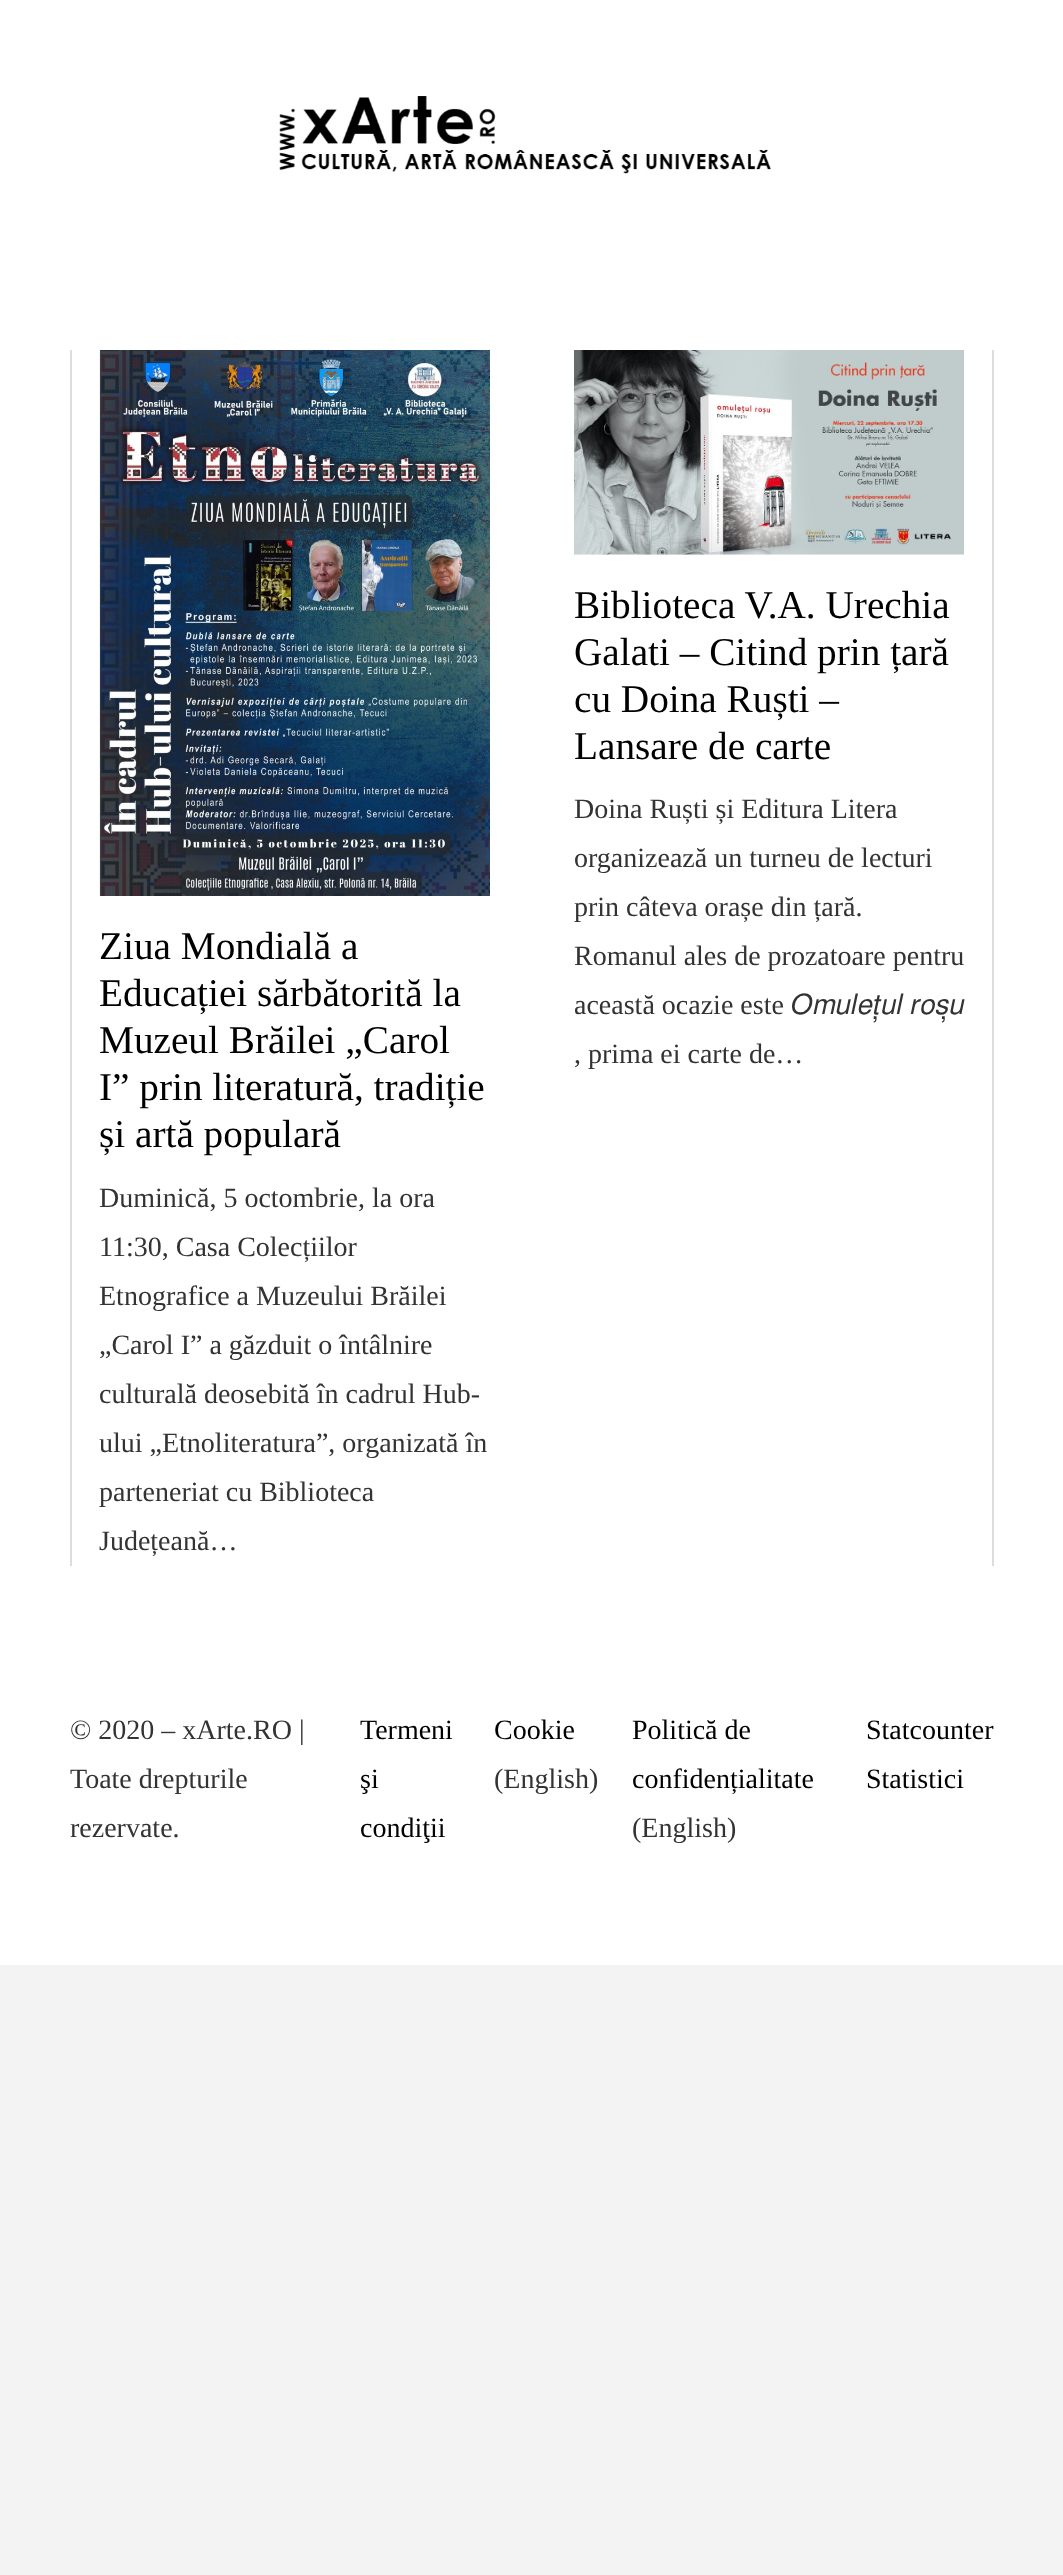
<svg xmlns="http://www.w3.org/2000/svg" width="1063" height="2575">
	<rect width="100%" height="100%" fill="#F3F3F3" />
	<rect x="0" y="0" width="1063" height="1965" fill="#FFFFFF" />
	<image x="279" y="96" width="492" height="78" href="assets/img1.png" />
	<rect x="992" y="350" width="2" height="1216" fill="#DDDDDD" />
	<rect x="70" y="350" width="2" height="1216" fill="#DDDDDD" />
	<image x="574" y="350" width="391" height="205" href="assets/img2.png" />
	<g font-family="Liberation Serif" font-size="39.25" fill="#000000">
		<text x="574" y="618">Biblioteca V.A. Urechia</text>
		<text x="574" y="665">Galati – Citind prin țară</text>
		<text x="574" y="712">cu Doina Ruști –</text>
		<text x="574" y="759">Lansare de carte</text>
	</g>
	<g font-family="Liberation Serif" font-size="28" fill="#333333">
		<text x="574" y="818">Doina Ruști și Editura Litera</text>
		<text x="574" y="867">organizează un turneu de lecturi</text>
		<text x="574" y="916">prin câteva orașe din țară.</text>
		<text x="574" y="965">Romanul ales de prozatoare pentru</text>
		<text x="574" y="1014">această ocazie este</text>
	</g>
	<text x="791" y="1014" font-family="FreeSans" font-size="28" fill="#333333">𝑂𝑚𝑢𝑙𝑒𝑡̦𝑢𝑙 𝑟𝑜𝑠̦𝑢</text>
	<text x="574" y="1063" font-family="Liberation Serif" font-size="28" fill="#333333">, prima ei carte de…</text>
	<image x="99" y="350" width="391" height="546" href="assets/img3.png" />
	<g font-family="Liberation Serif" font-size="39.25" fill="#000000">
		<text x="99" y="959">Ziua Mondială a</text>
		<text x="99" y="1006">Educației sărbătorită la</text>
		<text x="99" y="1053">Muzeul Brăilei „Carol</text>
		<text x="99" y="1100">I” prin literatură, tradiție</text>
		<text x="99" y="1147">și artă populară</text>
	</g>
	<g font-family="Liberation Serif" font-size="28" fill="#333333">
		<text x="99" y="1207">Duminică, 5 octombrie, la ora</text>
		<text x="99" y="1256">11:30, Casa Colecțiilor</text>
		<text x="99" y="1305">Etnografice a Muzeului Brăilei</text>
		<text x="99" y="1354">„Carol I” a găzduit o întâlnire</text>
		<text x="99" y="1403">culturală deosebită în cadrul Hub-</text>
		<text x="99" y="1452">ului „Etnoliteratura”, organizată în</text>
		<text x="99" y="1501">parteneriat cu Biblioteca</text>
		<text x="99" y="1550">Județeană…</text>
		<text x="70" y="1739">© 2020 – xArte.RO |</text>
		<text x="70" y="1788">Toate drepturile</text>
		<text x="70" y="1837">rezervate.</text>
	</g>
	<g font-family="Liberation Serif" font-size="28" fill="#000000">
		<text x="360" y="1739">Termeni</text>
		<text x="360" y="1788">şi</text>
		<text x="360" y="1837">condiţii</text>
		<text x="494" y="1739">Cookie</text>
	</g>
	<text x="494" y="1788" font-family="Liberation Serif" font-size="28" fill="#333333">(English)</text>
	<g font-family="Liberation Serif" font-size="28" fill="#000000">
		<text x="632" y="1739">Politică de</text>
		<text x="632" y="1788">confidențialitate</text>
	</g>
	<text x="632" y="1837" font-family="Liberation Serif" font-size="28" fill="#333333">(English)</text>
	<g font-family="Liberation Serif" font-size="28" fill="#000000">
		<text x="866" y="1739">Statcounter</text>
		<text x="866" y="1788">Statistici</text>
	</g>
</svg>
